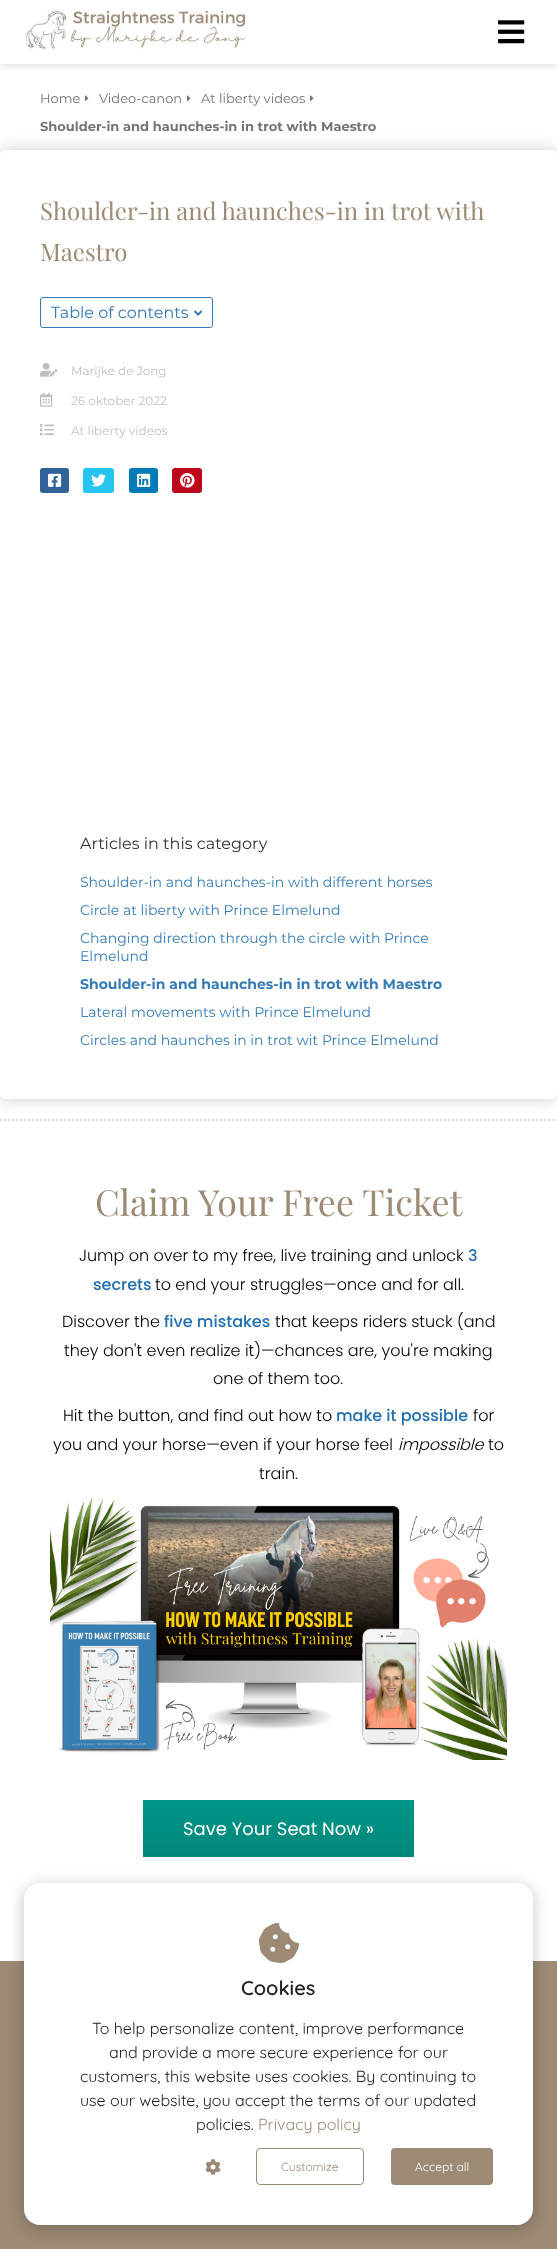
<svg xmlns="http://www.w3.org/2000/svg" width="557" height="2249">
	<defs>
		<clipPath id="clip1"><rect x="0" y="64" width="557" height="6" /></clipPath>
		<linearGradient id="g1" gradientUnits="userSpaceOnUse" x1="279" y1="1800" x2="279" y2="1857"><stop offset="0" stop-color="#000000" stop-opacity="0" /><stop offset="1" stop-color="#000000" stop-opacity="0.1" /></linearGradient>
	</defs>
	<rect width="100%" height="100%" fill="#FFFFFF" />
	<g clip-path="url(#clip1)">
		<rect x="0" y="0" width="557" height="64" fill="#000000" fill-opacity="0.2" filter="blur(5px)" />
	</g>
	<image x="24" y="10" width="222" height="40" href="assets/img1.png" />
	<image x="498" y="20" width="27" height="24" href="assets/img2.png" />
	<path d="M0 1120H557" fill="none" stroke="#DCDCDC" stroke-width="2" stroke-dasharray="2 2" />
	<text x="40" y="103" font-family="Montserrat" font-size="13" font-weight="100" fill="#747474">Home</text>
	<image x="85" y="95" width="4" height="7" href="assets/img3.png" />
	<text x="99" y="103" font-family="Montserrat" font-size="13" font-weight="100" fill="#747474">Video-canon</text>
	<image x="187" y="95" width="4" height="7" href="assets/img3.png" />
	<text x="201" y="103" font-family="Montserrat" font-size="13" font-weight="100" fill="#747474">At liberty videos</text>
	<image x="310" y="95" width="4" height="7" href="assets/img3.png" />
	<rect x="0" y="150" width="557" height="949" rx="5" fill="#000000" fill-opacity="0.2" filter="blur(7.5px)" />
	<text x="40" y="131" font-family="'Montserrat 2'" font-size="13" font-weight="100" fill="#747474">Shoulder-in and haunches-in in trot with Maestro</text>
	<rect x="0" y="150" width="557" height="949" rx="5" fill="#FFFFFF" />
	<g font-family="Playfair Display" font-size="24" fill="#9D8A75">
		<text x="40" y="220">Shoulder-in and haunches-in in trot with</text>
		<text x="40" y="261">Maestro</text>
	</g>
	<rect x="40.5" y="297.5" width="172" height="30" rx="2.5" fill="none" stroke="#337AB7" />
	<text x="51" y="318" font-family="Montserrat" font-size="16" font-weight="100" fill="#337AB7">Table of contents</text>
	<image x="194" y="310" width="9" height="6" href="assets/img4.png" />
	<image x="40" y="362" width="18" height="15" href="assets/img5.png" />
	<text x="71" y="375" font-family="Montserrat" font-size="12" font-weight="100" fill="#BFBFBF">Marijke de Jong</text>
	<image x="40" y="392" width="13" height="15" href="assets/img6.png" />
	<text x="71" y="405" font-family="Montserrat" font-size="12" font-weight="100" fill="#BFBFBF">26 oktober 2022</text>
	<image x="40" y="424" width="14" height="12" href="assets/img7.png" />
	<text x="71" y="435" font-family="Montserrat" font-size="12" font-weight="100" fill="#BFBFBF">At liberty videos</text>
	<rect x="40" y="468" width="29" height="25" rx="3" fill="#306199" />
	<image x="48" y="473" width="14" height="14" href="assets/img8.png" />
	<rect x="83" y="468" width="31" height="25" rx="3" fill="#26C4F1" />
	<image x="91" y="474" width="15" height="13" href="assets/img9.png" />
	<rect x="129" y="468" width="29" height="25" rx="3" fill="#007BB6" />
	<image x="137" y="473" width="14" height="14" href="assets/img10.png" />
	<rect x="172" y="468" width="30" height="25" rx="3" fill="#BD081C" />
	<image x="180" y="473" width="15" height="15" href="assets/img11.png" />
	<text x="80" y="849" font-family="Montserrat" font-size="16" font-weight="100" fill="#333333">Articles in this category</text>
	<g font-family="Montserrat" font-size="14" font-weight="100" fill="#337AB7">
		<text x="80" y="887">Shoulder-in and haunches-in with different horses</text>
		<text x="80" y="915">Circle at liberty with Prince Elmelund</text>
		<text x="80" y="943">Changing direction through the circle with Prince</text>
		<text x="80" y="961">Elmelund</text>
	</g>
	<text x="80" y="989" font-family="'Montserrat 2'" font-size="14" font-weight="100" fill="#337AB7">Shoulder-in and haunches-in in trot with Maestro</text>
	<g font-family="Montserrat" font-size="14" font-weight="100" fill="#337AB7">
		<text x="80" y="1017">Lateral movements with Prince Elmelund</text>
		<text x="80" y="1045">Circles and haunches in in trot wit Prince Elmelund</text>
	</g>
	<text x="95" y="1216" font-family="Playfair Display" font-size="36" fill="#9D8A75">Claim Your Free Ticket</text>
	<text x="79" y="1261" font-family="Poppins" font-size="16" font-weight="300" fill="#000000">Jump on over to my free, live training and unlock</text>
	<g font-family="Poppins" font-size="16" font-weight="500" fill="#216EB0">
		<text x="468" y="1261">3</text>
		<text x="93" y="1290">secrets</text>
	</g>
	<g font-family="Poppins" font-size="16" font-weight="300" fill="#000000">
		<text x="155" y="1290">to end your struggles—once and for all.</text>
		<text x="62" y="1327">Discover the</text>
	</g>
	<text x="164" y="1327" font-family="Poppins" font-size="16" font-weight="500" fill="#216EB0">five mistakes</text>
	<g font-family="Poppins" font-size="16" font-weight="300" fill="#000000">
		<text x="275" y="1327">that keeps riders stuck (and</text>
		<text x="64" y="1356">they don't even realize it)—chances are, you're making</text>
		<text x="213" y="1384">one of them too.</text>
		<text x="63" y="1421">Hit the button, and find out how to</text>
	</g>
	<text x="336" y="1421" font-family="Poppins" font-size="16" font-weight="500" fill="#216EB0">make it possible</text>
	<g font-family="Poppins" font-size="16" font-weight="300" fill="#000000">
		<text x="473" y="1421">for</text>
		<text x="53" y="1450">you and your horse—even if your horse feel</text>
	</g>
	<text x="398" y="1450" font-family="Poppins" font-size="16" font-weight="300" font-style="italic" fill="#000000">impossible</text>
	<g font-family="Poppins" font-size="16" font-weight="300" fill="#000000">
		<text x="488" y="1450">to</text>
		<text x="259" y="1479">train.</text>
	</g>
	<image x="50" y="1497" width="457" height="263" href="assets/img12.png" />
	<rect x="143" y="1800" width="271" height="57" fill="#009688" />
	<rect x="143" y="1800" width="271" height="57" rx="3" fill="url(#g1)" />
	<text x="183" y="1835" font-family="Poppins" font-size="18" fill="#FFFFFF">Save Your Seat Now »</text>
	<rect x="0" y="1961" width="557" height="288" fill="#9D8A75" />
	<rect x="24" y="1886" width="509" height="342" rx="16" fill="#000000" fill-opacity="0.24" filter="blur(7.5px)" />
	<rect x="24" y="1883" width="509" height="342" rx="16" fill="#FFFFFF" />
	<image x="259" y="1923" width="40" height="40" href="assets/img13.png" />
	<text x="241" y="1995" font-family="Quicksand" font-size="20" font-weight="600" fill="#222222">Cookies</text>
	<g font-family="Quicksand" font-size="16" fill="#222222">
		<text x="92" y="2034">To help personalize content, improve performance</text>
		<text x="109" y="2058">and provide a more secure experience for our</text>
		<text x="80" y="2082">customers, this website uses cookies. By continuing to</text>
		<text x="80" y="2106">use our website, you accept the terms of our updated</text>
		<text x="196" y="2130">policies.</text>
	</g>
	<text x="258" y="2130" font-family="Quicksand" font-size="16" fill="#9D8A75">Privacy policy</text>
	<image x="205" y="2159" width="16" height="16" href="assets/img14.png" />
	<rect x="256.5" y="2148.5" width="107" height="36" rx="3.5" fill="none" stroke="#9D8A75" />
	<text x="281" y="2171" font-family="Quicksand" font-size="12" fill="#9D8A75">Customize</text>
	<rect x="391" y="2148" width="102" height="37" rx="4" fill="#9D8A75" />
	<text x="415" y="2171" font-family="Quicksand" font-size="12" fill="#FFFFFF">Accept all</text>
</svg>
